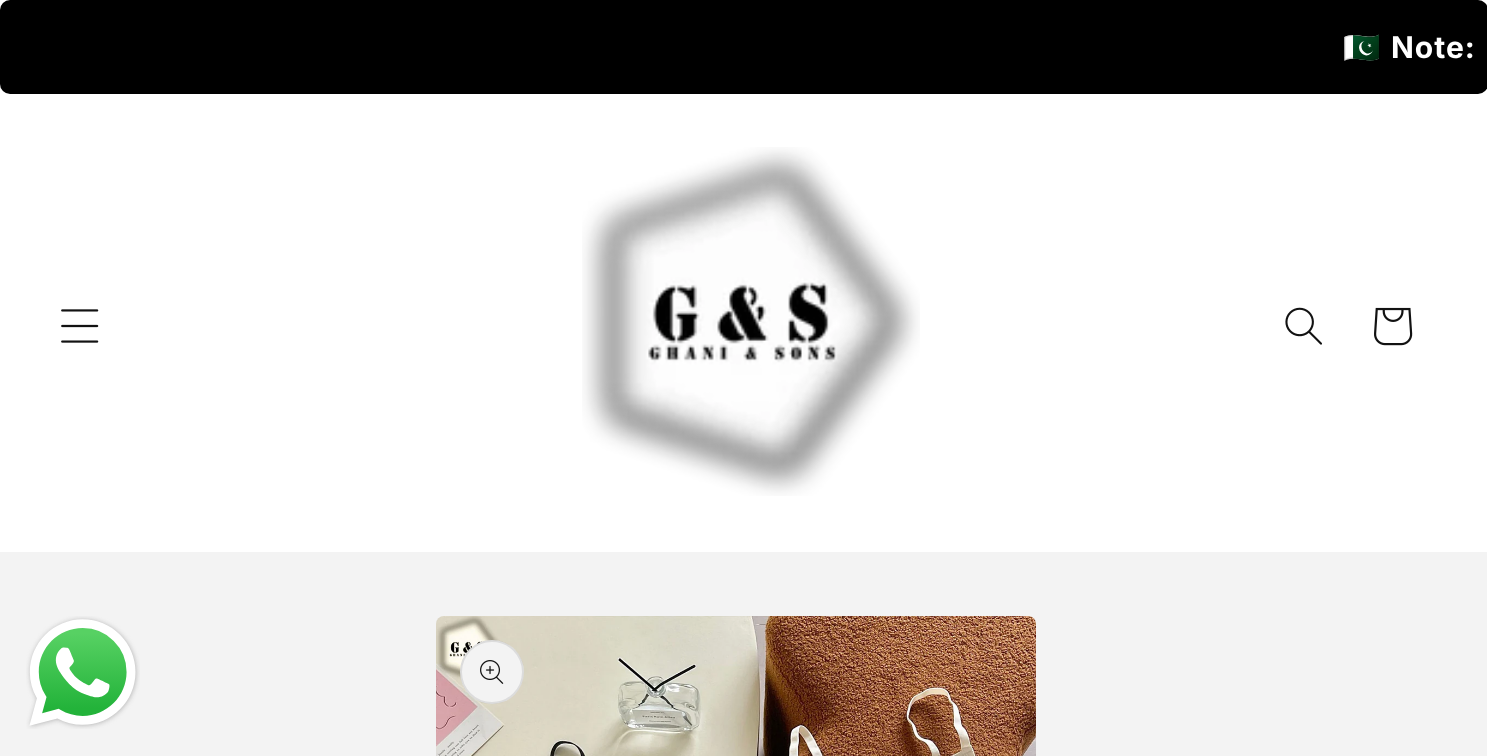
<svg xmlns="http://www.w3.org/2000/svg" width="1487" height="756">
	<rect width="100%" height="100%" fill="#FFFFFF" />
	<rect x="0" y="0" width="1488" height="94" rx="10" fill="#000000" />
	<text x="1343" y="58" font-family="Noto Color Emoji" font-size="30" font-weight="700" letter-spacing="1" fill="#FFFFFF">🇵🇰</text>
	<text x="1391" y="58" font-family="Inter" font-size="30" font-weight="700" letter-spacing="1" fill="#FFFFFF">Note:</text>
	<image x="61" y="309" width="38" height="34" href="assets/img1.png" />
	<image x="582" y="147" width="338" height="349" href="assets/img2.png" />
	<image x="1285" y="307" width="37" height="38" href="assets/img3.png" />
	<image x="1374" y="307" width="39" height="39" href="assets/img4.png" />
	<rect x="0" y="552" width="1487" height="204" fill="#F3F3F3" />
	<image x="436" y="616" width="600" height="140" href="assets/img5.png" />
	<circle cx="492" cy="672" r="32" fill="#F3F3F3" />
	<circle cx="492" cy="672" r="31" fill="none" stroke="#121212" stroke-opacity="0.1" stroke-width="2" />
	<image x="480" y="660" width="24" height="24" href="assets/img6.png" />
	<image x="26" y="616" width="114" height="113" href="assets/img7.png" />
</svg>
